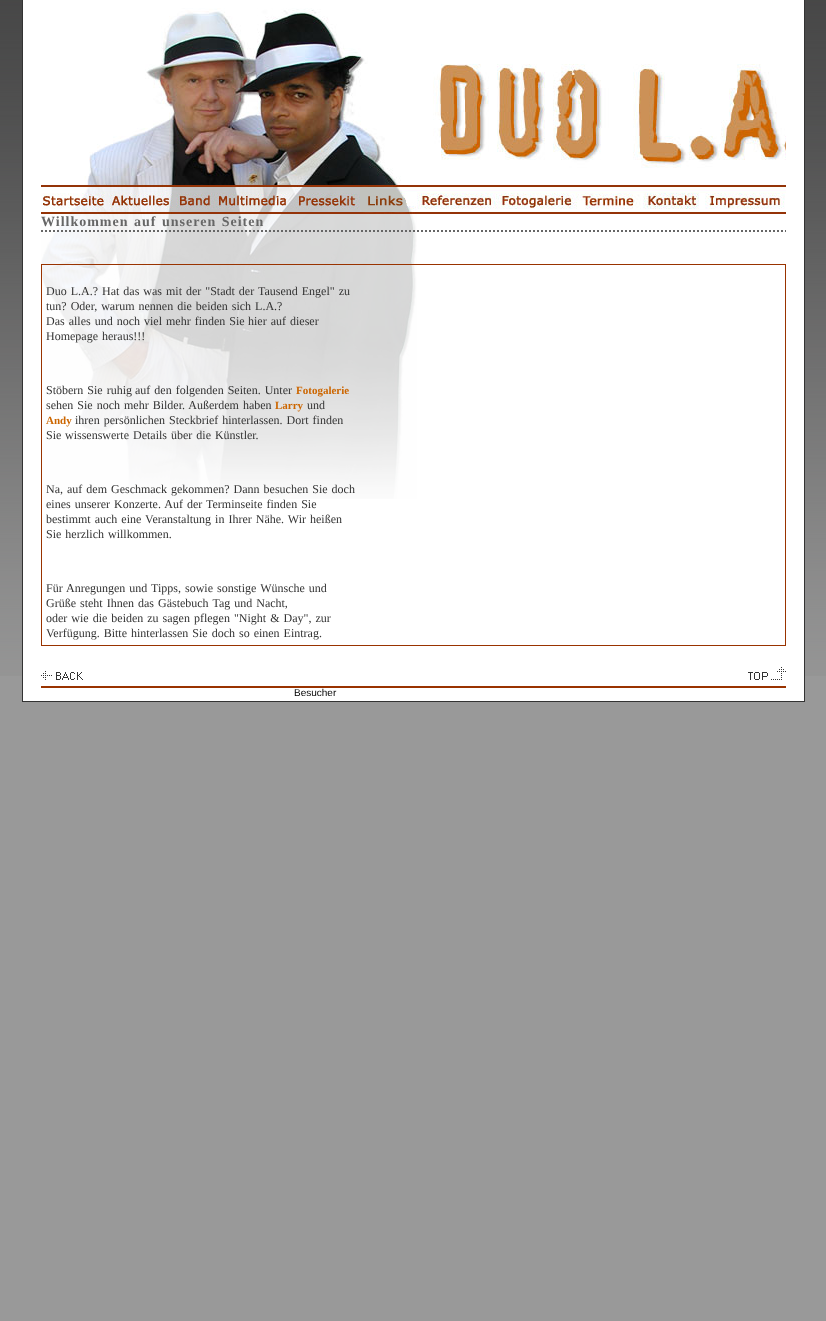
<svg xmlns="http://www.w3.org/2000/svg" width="826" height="1321">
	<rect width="100%" height="100%" fill="#999999" />
	<image x="0" y="0" width="826" height="676" href="assets/img1.png" />
	<rect x="23" y="0" width="781" height="701" fill="#FFFFFF" />
	<rect x="804" y="0" width="1" height="702" fill="#333333" />
	<rect x="22" y="701" width="783" height="1" fill="#333333" />
	<rect x="22" y="0" width="1" height="702" fill="#333333" />
	<image x="84" y="8" width="317" height="177" href="assets/img2.png" />
	<image x="433" y="64" width="353" height="104" href="assets/img3.png" />
	<image x="41" y="185" width="745" height="29" href="assets/img4.png" />
	<image x="41" y="187" width="68" height="27" href="assets/img5.png" />
	<image x="109" y="185" width="67" height="29" href="assets/img6.png" />
	<image x="176" y="187" width="40" height="25" href="assets/img7.png" />
	<image x="216" y="186" width="80" height="26" href="assets/img8.png" />
	<image x="296" y="186" width="64" height="26" href="assets/img9.png" />
	<image x="360" y="185" width="57" height="29" href="assets/img10.png" />
	<image x="417" y="193" width="80" height="16" href="assets/img11.png" />
	<image x="497" y="193" width="80" height="16" href="assets/img12.png" />
	<image x="577" y="193" width="64" height="16" href="assets/img13.png" />
	<image x="643" y="189" width="62" height="20" href="assets/img14.png" />
	<image x="705" y="193" width="80" height="16" href="assets/img15.png" />
	<image x="41" y="214" width="376" height="285" href="assets/img16.png" />
	<path d="M41 231H786" fill="none" stroke="#666666" stroke-width="2" stroke-dasharray="2 2" />
	<text x="41" y="226" word-spacing="1" font-family="Liberation Serif" font-size="14" font-weight="700" letter-spacing="1" fill="#666666">Willkommen auf unseren Seiten</text>
	<rect x="41.5" y="264.5" width="744" height="381" fill="none" stroke="#993300" />
	<g font-family="Liberation Serif" font-size="12" fill="#333333">
		<text x="46" y="295" word-spacing="1">Duo L.A.? Hat das was mit der "Stadt der Tausend Engel" zu</text>
		<text x="46" y="310" word-spacing="1">tun? Oder, warum nennen die beiden sich L.A.?</text>
		<text x="46" y="325" word-spacing="1">Das alles und noch viel mehr finden Sie</text>
		<text x="248" y="325" word-spacing="1">hier auf dieser</text>
		<text x="46" y="340" word-spacing="1">Homepage heraus!!!</text>
		<text x="46" y="394" word-spacing="1">Stöbern Sie ruhig</text>
		<text x="135" y="394" word-spacing="1">auf den folgenden Seiten. Unter</text>
	</g>
	<text x="296" y="394" font-family="Liberation Serif" font-size="11" font-weight="700" fill="#CC6600">Fotogalerie</text>
	<text x="46" y="409" word-spacing="1" font-family="Liberation Serif" font-size="12" fill="#333333">sehen Sie noch mehr Bilder. Außerdem haben</text>
	<text x="275" y="409" font-family="Liberation Serif" font-size="11" font-weight="700" fill="#CC6600">Larry</text>
	<text x="307" y="409" font-family="Liberation Serif" font-size="12" fill="#333333">und</text>
	<text x="46" y="424" font-family="Liberation Serif" font-size="11" font-weight="700" fill="#CC6600">Andy</text>
	<g font-family="Liberation Serif" font-size="12" fill="#333333">
		<text x="75" y="424" word-spacing="1">ihren persönlichen Steckbrief hinterlassen. Dort finden</text>
		<text x="46" y="439">Sie</text>
		<text x="65" y="439" word-spacing="1">wissenswerte Details über die Künstler.</text>
		<text x="46" y="493" word-spacing="1">Na, auf dem Geschmack gekommen? Dann besuchen Sie doch</text>
		<text x="46" y="508" word-spacing="1">eines unserer Konzerte. Auf der Terminseite finden Sie</text>
		<text x="46" y="523" word-spacing="1">bestimmt auch eine Veranstaltung in Ihrer Nähe. Wir heißen</text>
		<text x="46" y="538" word-spacing="1">Sie herzlich willkommen.</text>
		<text x="46" y="592" word-spacing="1">Für Anregungen und Tipps, sowie sonstige Wünsche und</text>
		<text x="46" y="607" word-spacing="1">Grüße steht Ihnen das Gästebuch Tag und Nacht,</text>
		<text x="46" y="622" word-spacing="1">oder wie die beiden zu sagen pflegen "Night &amp; Day", zur</text>
		<text x="46" y="637" word-spacing="1">Verfügung. Bitte hinterlassen Sie doch so einen Eintrag.</text>
	</g>
	<image x="41" y="671" width="42" height="9" href="assets/img17.png" />
	<image x="748" y="667" width="38" height="13" href="assets/img18.png" />
	<rect x="41" y="686" width="745" height="2" fill="#993300" />
	<text x="294" y="696" font-family="Liberation Sans" font-size="10" fill="#000000">Besucher</text>
</svg>
